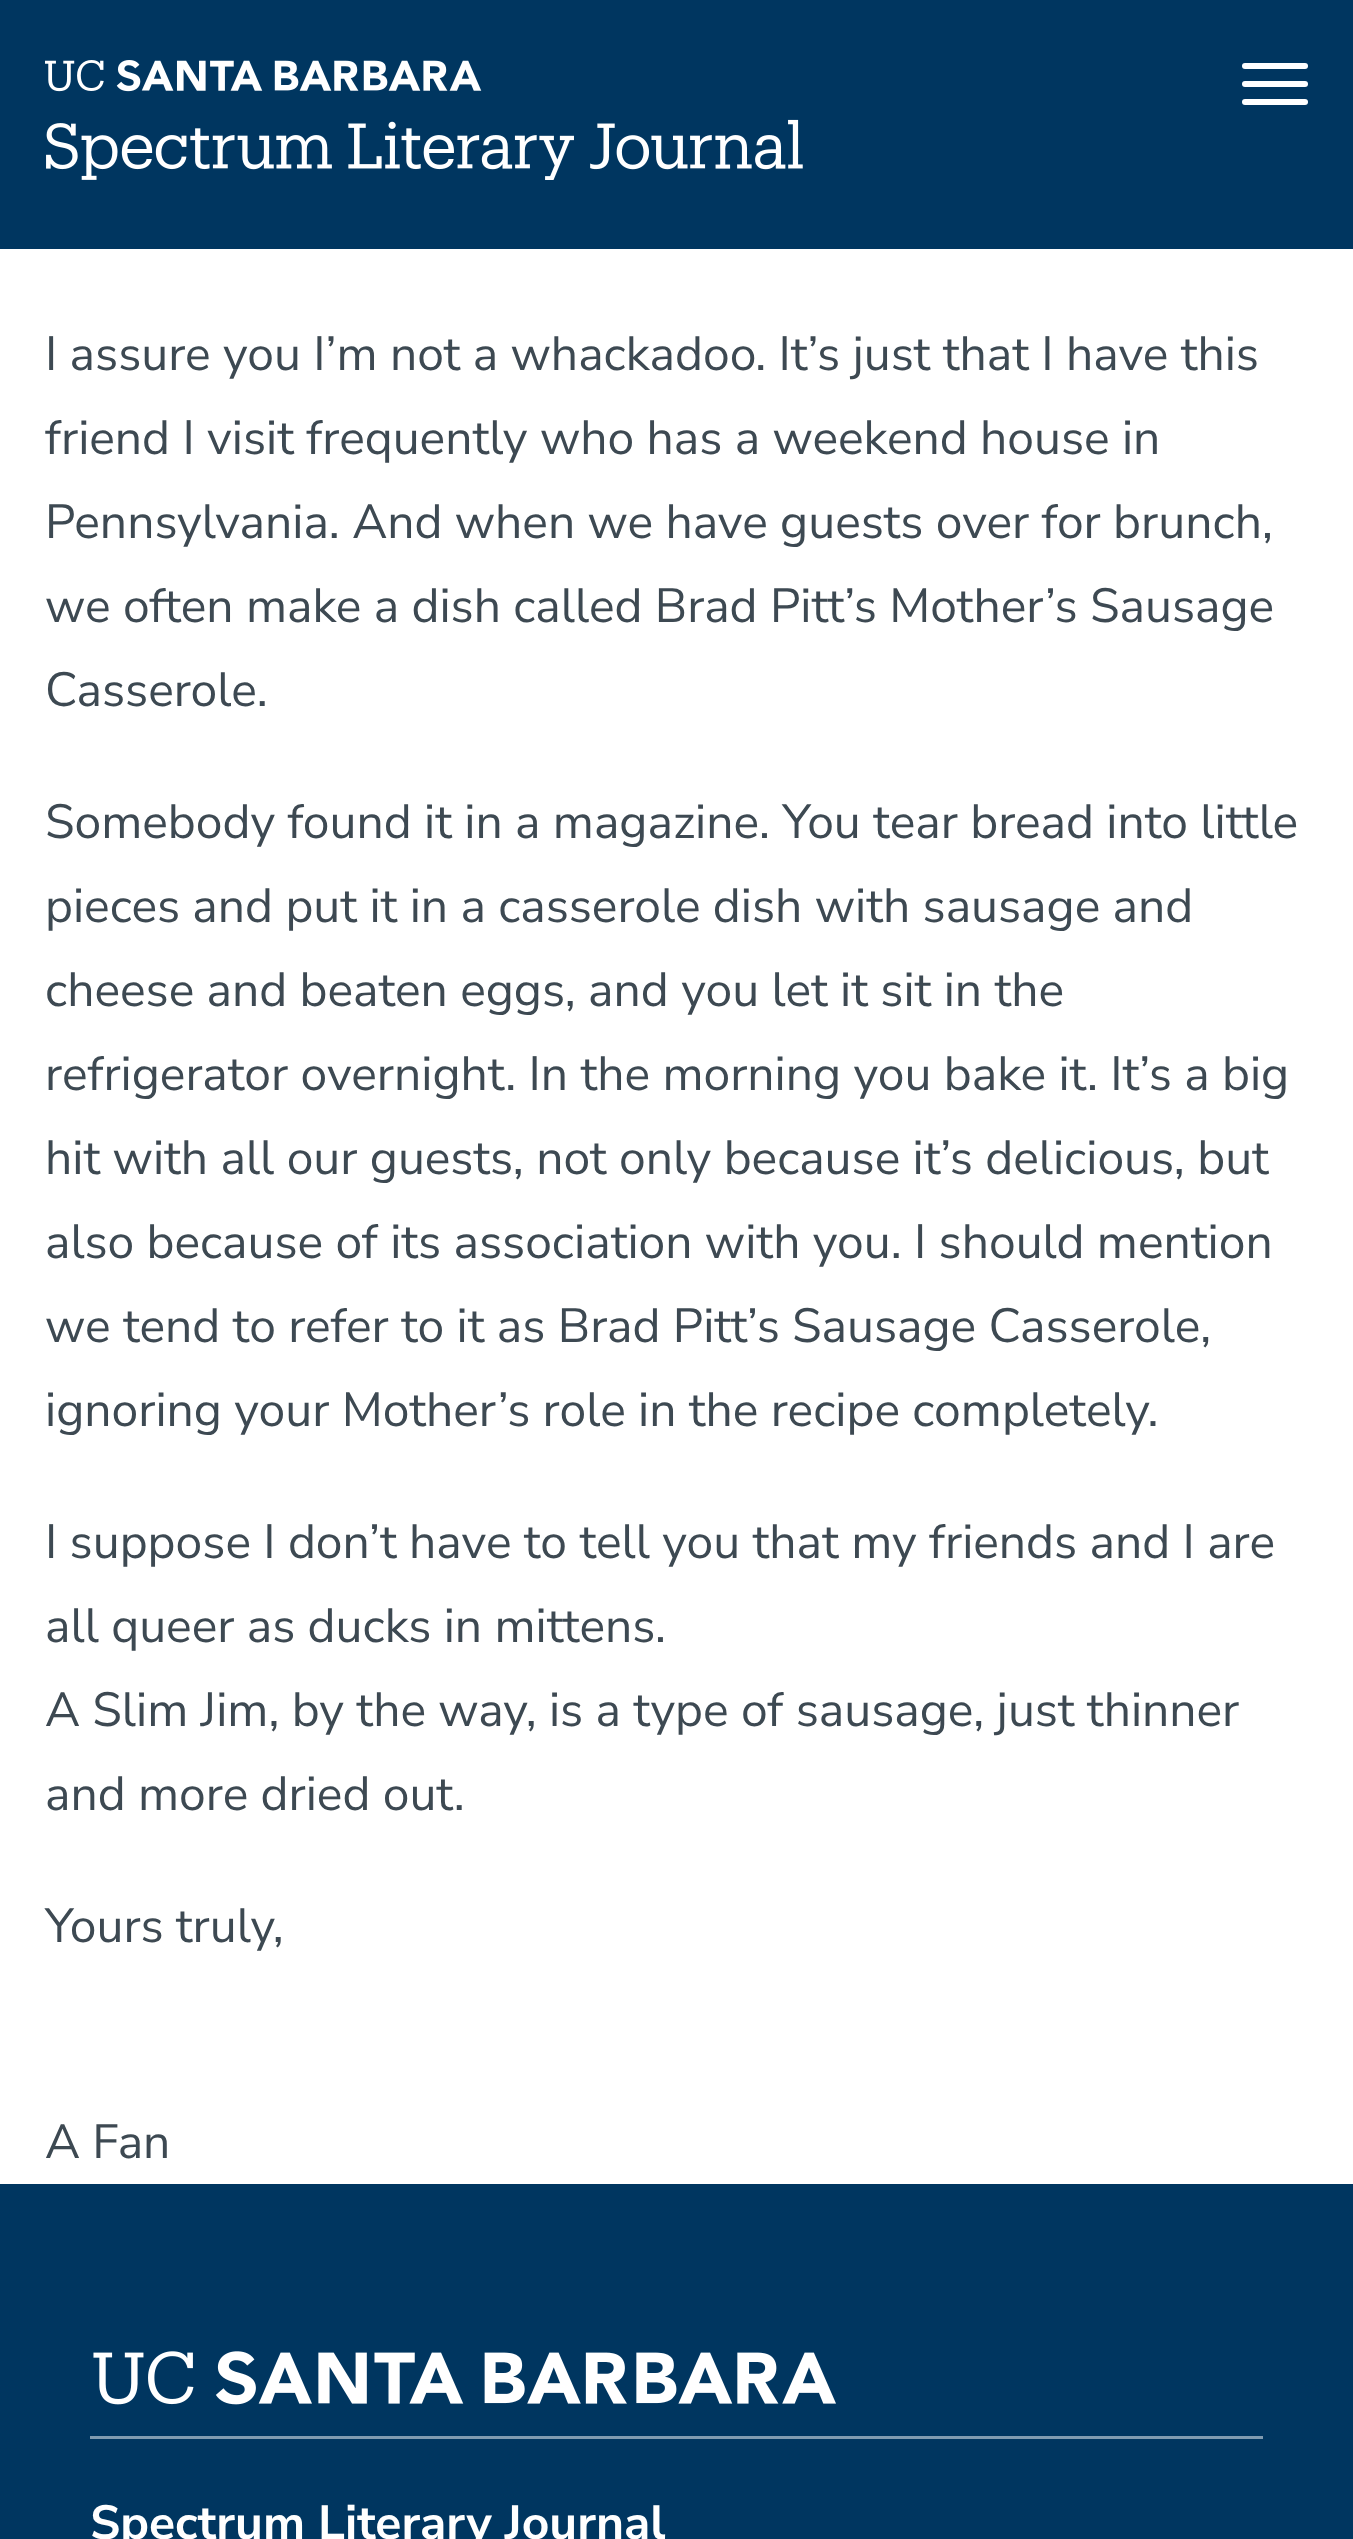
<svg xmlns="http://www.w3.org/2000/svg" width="1353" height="2539">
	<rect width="100%" height="100%" fill="#FFFFFF" />
	<rect x="0" y="0" width="1353" height="249" fill="#003660" />
	<image x="45" y="60" width="758" height="120" href="assets/img1.png" />
	<rect x="1242" y="63" width="66" height="6" rx="3" fill="#FFFFFF" />
	<rect x="1242" y="81" width="66" height="6" rx="3" fill="#FFFFFF" />
	<rect x="1242" y="99" width="66" height="6" rx="3" fill="#FFFFFF" />
	<g font-family="Nunito Sans" font-size="48" fill="#3D4952">
		<text x="45" y="370">I assure you I’m not a whackadoo. It’s just that I have this</text>
		<text x="45" y="454">friend I visit frequently who has a weekend house in</text>
		<text x="45" y="538">Pennsylvania. And when we have guests over for brunch,</text>
		<text x="45" y="622">we often make a dish called Brad Pitt’s Mother’s Sausage</text>
		<text x="45" y="706">Casserole.</text>
		<text x="45" y="838">Somebody found it in a magazine. You tear bread into little</text>
		<text x="45" y="922">pieces and put it in a casserole dish with sausage and</text>
		<text x="45" y="1006">cheese and beaten eggs, and you let it sit in the</text>
		<text x="45" y="1090">refrigerator overnight. In the morning you bake it. It’s a big</text>
		<text x="45" y="1174">hit with all our guests, not only because it’s delicious, but</text>
		<text x="45" y="1258">also because of its association with you. I should mention</text>
		<text x="45" y="1342">we tend to refer to it as Brad Pitt’s Sausage Casserole,</text>
		<text x="45" y="1426">ignoring your Mother’s role in the recipe completely.</text>
		<text x="45" y="1558">I suppose I don’t have to tell you that my friends and I are</text>
		<text x="45" y="1642">all queer as ducks in mittens.</text>
		<text x="45" y="1726">A Slim Jim, by the way, is a type of sausage, just thinner</text>
		<text x="45" y="1810">and more dried out.</text>
		<text x="45" y="1942">Yours truly,</text>
		<text x="45" y="2158">A Fan</text>
	</g>
	<rect x="0" y="2184" width="1353" height="355" fill="#003660" />
	<rect x="90" y="2436" width="1173" height="3" fill="#809BB0" />
	<image x="93" y="2351" width="743" height="54" href="assets/img2.png" />
	<text x="90" y="2539" font-family="Nunito Sans" font-size="48" font-weight="700" fill="#FFFFFF">Spectrum Literary Journal</text>
</svg>
